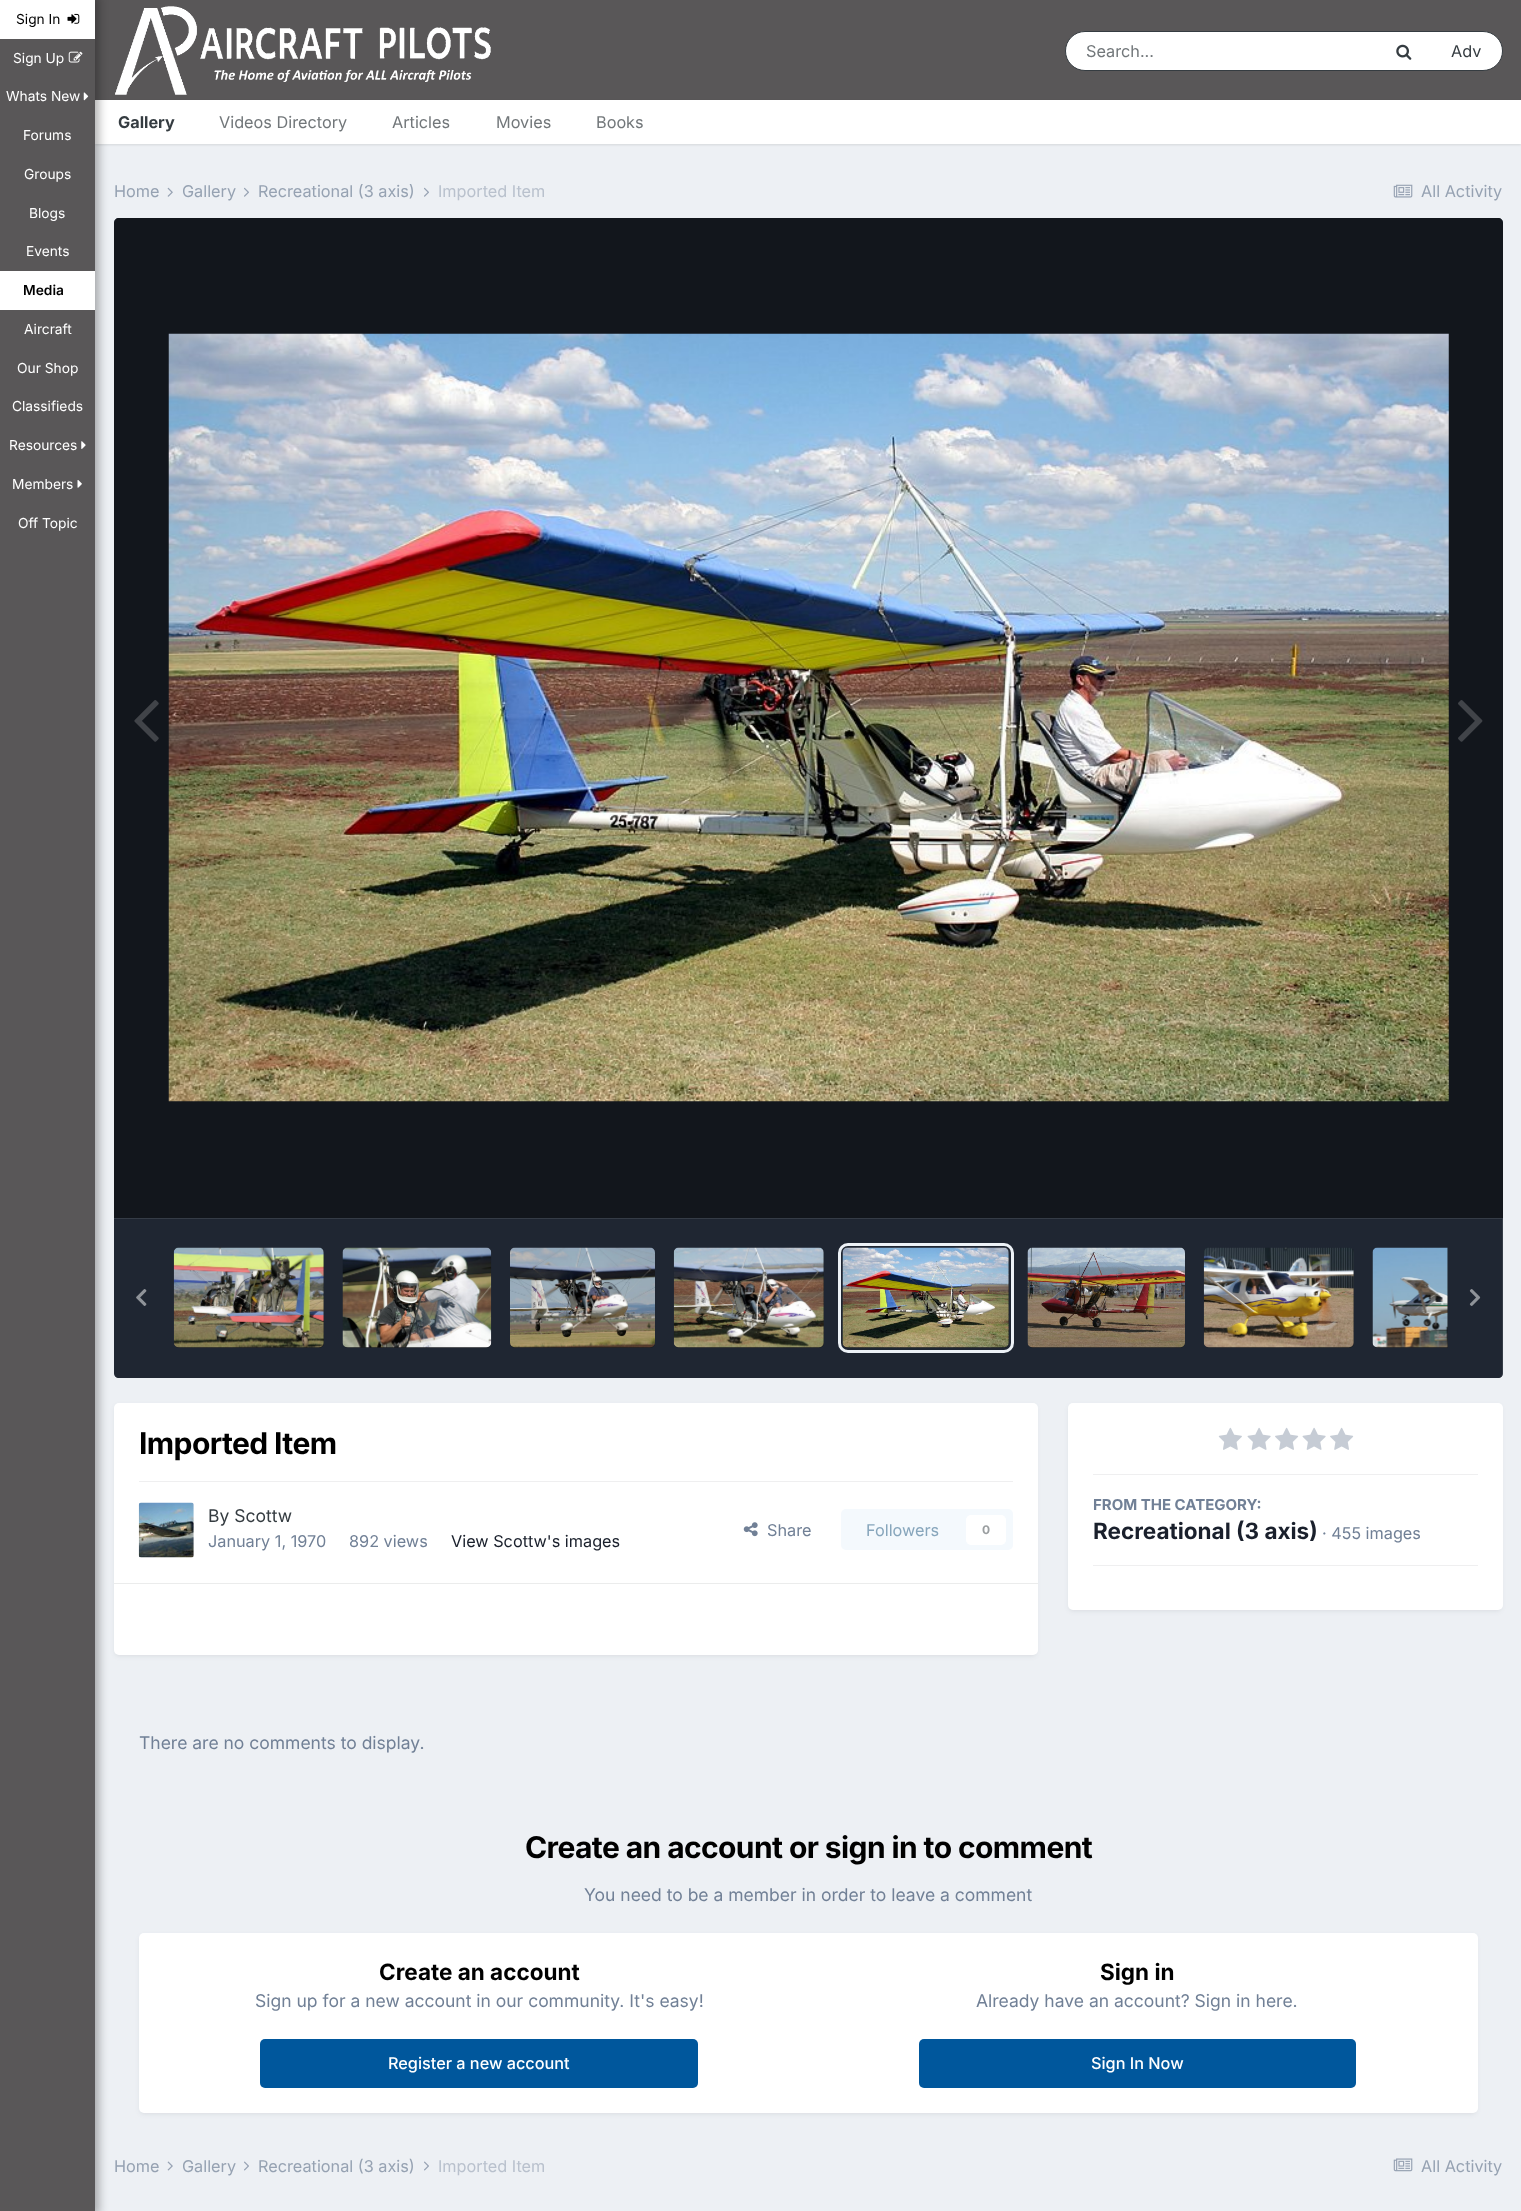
<svg xmlns="http://www.w3.org/2000/svg" width="1521" height="2211">
	<defs>
		<clipPath id="clip1"><rect x="259" y="184" width="174" height="19" /></clipPath>
	</defs>
	<rect width="100%" height="100%" fill="#EDF0F4" />
	<rect x="95" y="0" width="1426" height="100" fill="#595758" />
	<rect x="95" y="101" width="1426" height="44" fill="#000000" fill-opacity="0.1" filter="blur(1px)" />
	<rect x="95" y="100" width="1426" height="44" fill="#FFFFFF" />
	<path d="M119 218H1498C1501 218 1503 220 1503 223V1218H114V223C114 220 116 218 119 218Z" fill="#2D3748" />
	<path d="M119 218H1498C1501 218 1503 220 1503 223V1218H114V223C114 220 116 218 119 218Z" fill="#000000" fill-opacity="0.6" />
	<path d="M114 1218H1503V1373C1503 1376 1501 1378 1498 1378H119C116 1378 114 1376 114 1373Z" fill="#2D3748" />
	<path d="M114 1218H1503V1373C1503 1376 1501 1378 1498 1378H119C116 1378 114 1376 114 1373Z" fill="#000000" fill-opacity="0.3" />
	<path d="M114 1219H1502V1374L1501 1377L1503 1374V1218H114Z" fill="#FFFFFF" fill-opacity="0.1" />
	<rect x="115" y="1406" width="921" height="250" rx="4" fill="#2D3748" fill-opacity="0.1" filter="blur(2.5px)" />
	<rect x="114" y="1403" width="924" height="252" rx="5" fill="#FFFFFF" />
	<rect x="114" y="1583" width="924" height="1" fill="#EBECEC" />
	<rect x="-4" y="-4" width="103" height="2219" fill="#000000" fill-opacity="0.3" filter="blur(5px)" />
	<rect x="0" y="39" width="95" height="2172" fill="#595758" />
	<rect x="0" y="0" width="95" height="39" fill="#FFFFFF" />
	<text x="16" y="24" font-family="Inter" font-size="13.75" fill="#000000">Sign In</text>
	<image x="67" y="13" width="13" height="11" href="assets/img1.png" />
	<text x="13" y="63" font-family="Inter" font-size="13.75" fill="#FFFFFF">Sign Up</text>
	<image x="68" y="51" width="15" height="12" href="assets/img2.png" />
	<text x="6" y="101" font-family="Inter" font-size="13.75" fill="#FFFFFF">Whats New</text>
	<image x="83" y="92" width="6" height="9" href="assets/img3.png" />
	<g font-family="Inter" font-size="13.75" fill="#FFFFFF">
		<text x="23" y="140">Forums</text>
		<text x="24" y="179">Groups</text>
		<text x="29" y="218">Blogs</text>
		<text x="26" y="256">Events</text>
	</g>
	<rect x="0" y="271" width="95" height="39" fill="#FFFFFF" />
	<text x="23" y="295" font-family="Inter" font-size="13.75" font-weight="600" fill="#000000">Media</text>
	<g font-family="Inter" font-size="13.75" fill="#FFFFFF">
		<text x="24" y="334">Aircraft</text>
		<text x="17" y="373">Our Shop</text>
		<text x="12" y="411">Classifieds</text>
		<text x="9" y="450">Resources</text>
	</g>
	<image x="81" y="441" width="5" height="8" href="assets/img4.png" />
	<text x="12" y="489" font-family="Inter" font-size="13.75" fill="#FFFFFF">Members</text>
	<image x="77" y="480" width="5" height="8" href="assets/img5.png" />
	<text x="18" y="528" font-family="Inter" font-size="13.75" fill="#FFFFFF">Off Topic</text>
	<image x="115" y="6" width="376" height="89" href="assets/img6.png" />
	<rect x="1065.5" y="31.5" width="437" height="39" rx="19.5" fill="#FFFFFF" stroke="#353C41" />
	<text x="1086" y="57" font-family="Inter" font-size="16.25" fill="#72777A">Search...</text>
	<image x="1396" y="44" width="16" height="16" href="assets/img7.png" />
	<text x="1451" y="57" font-family="Inter" font-size="16.25" fill="#353C41">Adv</text>
	<text x="118" y="128" font-family="Inter" font-size="16.25" font-weight="700" fill="#353C41">Gallery</text>
	<g font-family="Inter" font-size="16.25" fill="#72777A">
		<text x="219" y="128">Videos Directory</text>
		<text x="392" y="128">Articles</text>
		<text x="496" y="128">Movies</text>
		<text x="596" y="128">Books</text>
	</g>
	<text x="114" y="197" font-family="Inter" font-size="16.25" fill="#96A2B2">Home</text>
	<image x="167" y="187" width="6" height="10" href="assets/img8.png" />
	<text x="182" y="197" font-family="Inter" font-size="16.25" fill="#96A2B2">Gallery</text>
	<image x="244" y="187" width="5" height="10" href="assets/img9.png" />
	<g clip-path="url(#clip1)">
		<text x="258" y="197" font-family="Inter" font-size="16.25" fill="#96A2B2">Recreational (3 axis)</text>
	</g>
	<image x="424" y="187" width="5" height="10" href="assets/img9.png" />
	<text x="438" y="197" font-family="Inter" font-size="16.25" fill="#B9C1CD">Imported Item</text>
	<image x="1393" y="184" width="20" height="14" href="assets/img10.png" />
	<text x="1421" y="197" font-family="Inter" font-size="16.25" fill="#96A2B2">All Activity</text>
	<image x="168" y="333" width="1281" height="769" href="assets/img11.png" />
	<image x="134" y="700" width="25" height="42" href="assets/img12.png" />
	<image x="1458" y="700" width="25" height="42" href="assets/img13.png" />
	<rect x="174" y="1248" width="150" height="100" rx="5" fill="#141414" />
	<rect x="174" y="1248" width="150" height="100" rx="5" fill="#2D3748" fill-opacity="0.3" />
	<image x="173" y="1247" width="151" height="101" href="assets/img14.png" />
	<rect x="343" y="1248" width="148" height="100" rx="5" fill="#141414" />
	<rect x="343" y="1248" width="148" height="100" rx="5" fill="#2D3748" fill-opacity="0.3" />
	<image x="342" y="1247" width="150" height="101" href="assets/img15.png" />
	<rect x="510" y="1248" width="145" height="100" rx="5" fill="#141414" />
	<rect x="510" y="1248" width="145" height="100" rx="5" fill="#2D3748" fill-opacity="0.3" />
	<image x="510" y="1247" width="145" height="101" href="assets/img16.png" />
	<rect x="674" y="1248" width="150" height="100" rx="5" fill="#141414" />
	<rect x="674" y="1248" width="150" height="100" rx="5" fill="#2D3748" fill-opacity="0.3" />
	<image x="673" y="1247" width="151" height="101" href="assets/img17.png" />
	<rect x="843" y="1248" width="166" height="100" rx="5" fill="#141414" />
	<rect x="843" y="1248" width="166" height="100" rx="5" fill="#2D3748" fill-opacity="0.3" />
	<rect x="839.5" y="1244.5" width="173" height="107" rx="8.5" fill="none" stroke="#EDF2F7" stroke-width="3" />
	<image x="842" y="1247" width="167" height="101" href="assets/img18.png" />
	<rect x="1028" y="1248" width="157" height="100" rx="5" fill="#141414" />
	<rect x="1028" y="1248" width="157" height="100" rx="5" fill="#2D3748" fill-opacity="0.3" />
	<image x="1027" y="1247" width="158" height="101" href="assets/img19.png" />
	<rect x="1204" y="1248" width="150" height="100" rx="5" fill="#141414" />
	<rect x="1204" y="1248" width="150" height="100" rx="5" fill="#2D3748" fill-opacity="0.3" />
	<image x="1203" y="1247" width="151" height="101" href="assets/img20.png" />
	<path d="M1378 1248H1448V1348H1378C1375 1348 1373 1346 1373 1343V1253C1373 1250 1375 1248 1378 1248Z" fill="#141414" />
	<path d="M1378 1248H1448V1348H1378C1375 1348 1373 1346 1373 1343V1253C1373 1250 1375 1248 1378 1248Z" fill="#2D3748" fill-opacity="0.3" />
	<image x="1372" y="1247" width="76" height="101" href="assets/img21.png" />
	<image x="136" y="1289" width="11" height="17" href="assets/img22.png" />
	<image x="1469" y="1289" width="12" height="17" href="assets/img23.png" />
	<text x="139" y="1454" font-family="Inter" font-size="30" font-weight="700" letter-spacing="-0.6" fill="#000000">Imported Item</text>
	<rect x="139" y="1481" width="874" height="1" fill="#EFEFF0" />
	<image x="138" y="1502" width="56" height="56" href="assets/img24.png" />
	<text x="208" y="1522" font-family="Inter" font-size="17.5" fill="#353C41">By Scottw</text>
	<g font-family="Inter" font-size="16.25" fill="#718096">
		<text x="208" y="1547">January 1, 1970</text>
		<text x="349" y="1547">892 views</text>
	</g>
	<text x="451" y="1547" font-family="Inter" font-size="16.25" fill="#1A202C">View Scottw's images</text>
	<image x="743" y="1522" width="15" height="15" href="assets/img25.png" />
	<text x="767" y="1536" font-family="Inter" font-size="16.25" fill="#718096">Share</text>
	<rect x="841" y="1509" width="172" height="41" rx="5" fill="#F4F9FD" />
	<text x="866" y="1536" font-family="Inter" font-size="16.25" fill="#87A6BC">Followers</text>
	<rect x="966" y="1515" width="40" height="30" rx="5" fill="#FFFFFF" />
	<text x="982" y="1534" font-family="Inter" font-size="12" font-weight="700" fill="#9A9EA0">0</text>
	<rect x="1069" y="1406" width="432" height="205" rx="4" fill="#2D3748" fill-opacity="0.1" filter="blur(2.5px)" />
	<rect x="1068" y="1403" width="435" height="207" rx="5" fill="#FFFFFF" />
	<image x="1218" y="1427" width="24" height="23" href="assets/img26.png" />
	<image x="1247" y="1427" width="24" height="23" href="assets/img27.png" />
	<image x="1275" y="1427" width="24" height="23" href="assets/img28.png" />
	<image x="1302" y="1427" width="24" height="23" href="assets/img27.png" />
	<image x="1330" y="1427" width="24" height="23" href="assets/img28.png" />
	<rect x="1093" y="1474" width="385" height="1" fill="#EFEFF0" />
	<text x="1093" y="1510" font-family="Inter" font-size="15" font-weight="700" fill="#718096">FROM THE CATEGORY:</text>
	<text x="1093" y="1539" font-family="Inter" font-size="22.5" font-weight="700" fill="#1A202C">Recreational (3 axis)</text>
	<text x="1322" y="1539" font-family="Inter" font-size="16.25" fill="#718096">· 455 images</text>
	<rect x="1093" y="1565" width="385" height="1" fill="#EFEFF0" />
	<text x="139" y="1749" font-family="Inter" font-size="17.5" fill="#718096">There are no comments to display.</text>
	<text x="525" y="1858" font-family="Inter" font-size="30" font-weight="700" letter-spacing="-0.6" fill="#000000">Create an account or sign in to comment</text>
	<text x="584" y="1901" font-family="Inter" font-size="17.5" fill="#718096">You need to be a member in order to leave a comment</text>
	<rect x="140" y="1936" width="1336" height="178" rx="4" fill="#2D3748" fill-opacity="0.1" filter="blur(2.5px)" />
	<rect x="139" y="1933" width="1339" height="180" rx="5" fill="#FFFFFF" />
	<text x="379" y="1980" font-family="Inter" font-size="22.5" font-weight="700" fill="#000000">Create an account</text>
	<text x="255" y="2007" font-family="Inter" font-size="17.5" fill="#718096">Sign up for a new account in our community. It's easy!</text>
	<rect x="260" y="2039" width="438" height="49" rx="5" fill="#00579C" />
	<text x="388" y="2069" font-family="Inter" font-size="16.25" font-weight="500" fill="#FFFFFF">Register a new account</text>
	<text x="1100" y="1980" font-family="Inter" font-size="22.5" font-weight="700" fill="#000000">Sign in</text>
	<text x="976" y="2007" font-family="Inter" font-size="17.5" fill="#718096">Already have an account? Sign in here.</text>
	<rect x="919" y="2039" width="437" height="49" rx="5" fill="#00579C" />
	<text x="1091" y="2069" font-family="Inter" font-size="16.25" font-weight="500" fill="#FFFFFF">Sign In Now</text>
	<text x="114" y="2172" font-family="Inter" font-size="16.25" fill="#96A2B2">Home</text>
	<image x="167" y="2161" width="6" height="10" href="assets/img29.png" />
	<text x="182" y="2172" font-family="Inter" font-size="16.25" fill="#96A2B2">Gallery</text>
	<image x="244" y="2161" width="5" height="10" href="assets/img30.png" />
	<text x="258" y="2172" font-family="Inter" font-size="16.25" fill="#96A2B2">Recreational (3 axis)</text>
	<image x="424" y="2161" width="5" height="10" href="assets/img30.png" />
	<text x="438" y="2172" font-family="Inter" font-size="16.25" fill="#B9C1CD">Imported Item</text>
	<image x="1393" y="2158" width="20" height="14" href="assets/img31.png" />
	<text x="1421" y="2172" font-family="Inter" font-size="16.25" fill="#96A2B2">All Activity</text>
</svg>
